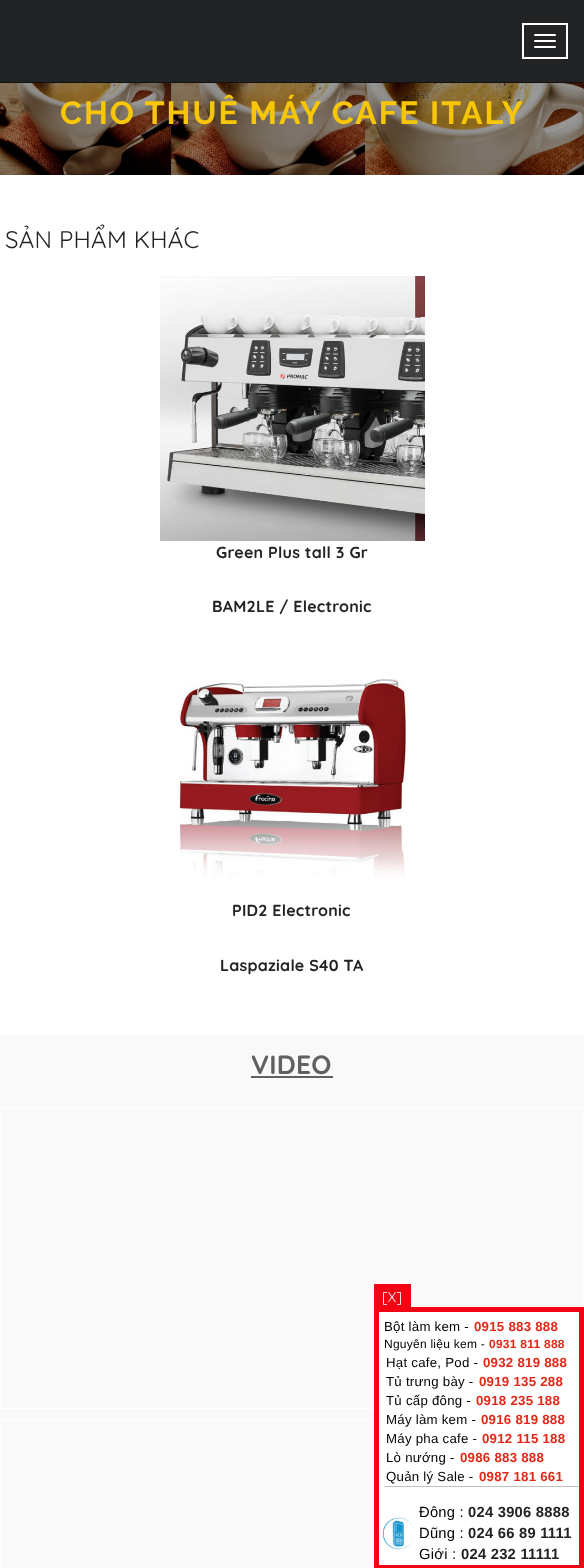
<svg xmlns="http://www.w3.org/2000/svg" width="584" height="1568">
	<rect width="100%" height="100%" fill="#FFFFFF" />
	<rect x="0" y="0" width="584" height="83" fill="#212324" />
	<rect x="1" y="82" width="582" height="1" fill="#111111" />
	<rect x="523" y="24" width="44" height="34" fill="none" stroke="#FFFFFF" stroke-width="2" />
	<rect x="534" y="34" width="22" height="2" rx="1" fill="#FFFFFF" />
	<rect x="534" y="40" width="22" height="2" rx="1" fill="#FFFFFF" />
	<rect x="534" y="46" width="22" height="2" rx="1" fill="#FFFFFF" />
	<image x="0" y="83" width="584" height="92" href="assets/img1.png" />
	<text x="60" y="124" font-family="Raleway" font-size="32" font-weight="700" letter-spacing="2" fill="#F7C707">CHO THUÊ MÁY CAFE ITALY</text>
	<text x="5" y="248" font-family="Quicksand" font-size="24" letter-spacing="0.25" fill="#212324">SẢN PHẨM KHÁC</text>
	<image x="160" y="276" width="265" height="265" href="assets/img2.png" />
	<g font-family="Quicksand" font-size="16" font-weight="700" letter-spacing="0.25" fill="#212324">
		<text x="216" y="558">Green Plus tall 3 Gr</text>
		<text x="212" y="612">BAM2LE / Electronic</text>
	</g>
	<image x="177" y="679" width="233" height="199" href="assets/img3.png" />
	<g font-family="Quicksand" font-size="16" font-weight="700" letter-spacing="0.25" fill="#212324">
		<text x="232" y="916">PID2 Electronic</text>
		<text x="220" y="971">Laspaziale S40 TA</text>
	</g>
	<rect x="0" y="1035" width="584" height="533" fill="#F9F9F9" />
	<text x="251" y="1074" font-family="Quicksand" font-size="26.5" font-weight="700" letter-spacing="0.25" fill="#616161">VIDEO</text>
	<rect x="251" y="1076" width="82" height="2" fill="#616161" />
	<rect x="0.5" y="1108.5" width="583" height="300" fill="none" stroke="#FFFFFF" />
	<rect x="0.5" y="1419.5" width="583" height="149" fill="none" stroke="#FFFFFF" />
	<rect x="374" y="1284" width="37" height="23" fill="#F30415" />
	<text x="382" y="1302" font-family="Quicksand" font-size="14" letter-spacing="0.25" fill="#FFFFFF">[X]</text>
	<rect x="376.5" y="1309.5" width="205" height="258" fill="#FFFFFF" stroke="#F30415" stroke-width="5" />
	<text x="384" y="1331" font-family="Liberation Sans" font-size="13.25" letter-spacing="0.25" fill="#000000">Bột làm kem -</text>
	<text x="474" y="1331" font-family="Liberation Sans" font-size="13.25" font-weight="700" letter-spacing="0.25" fill="#E42817">0915 883 888</text>
	<text x="384" y="1348" font-family="Liberation Sans" font-size="12" letter-spacing="0.25" fill="#000000">Nguyên liệu kem -</text>
	<text x="489" y="1348" font-family="Liberation Sans" font-size="12" font-weight="700" letter-spacing="0.25" fill="#E42817">0931 811 888</text>
	<text x="386" y="1367" font-family="Liberation Sans" font-size="13.25" letter-spacing="0.25" fill="#000000">Hạt cafe, Pod -</text>
	<text x="483" y="1367" font-family="Liberation Sans" font-size="13.25" font-weight="700" letter-spacing="0.25" fill="#E42817">0932 819 888</text>
	<text x="386" y="1386" font-family="Liberation Sans" font-size="13.25" letter-spacing="0.25" fill="#000000">Tủ trưng bày -</text>
	<text x="479" y="1386" font-family="Liberation Sans" font-size="13.25" font-weight="700" letter-spacing="0.25" fill="#E42817">0919 135 288</text>
	<text x="386" y="1405" font-family="Liberation Sans" font-size="13.25" letter-spacing="0.25" fill="#000000">Tủ cấp đông -</text>
	<text x="476" y="1405" font-family="Liberation Sans" font-size="13.25" font-weight="700" letter-spacing="0.25" fill="#E42817">0918 235 188</text>
	<text x="386" y="1424" font-family="Liberation Sans" font-size="13.25" letter-spacing="0.25" fill="#000000">Máy làm kem -</text>
	<text x="481" y="1424" font-family="Liberation Sans" font-size="13.25" font-weight="700" letter-spacing="0.25" fill="#E42817">0916 819 888</text>
	<text x="386" y="1443" font-family="Liberation Sans" font-size="13.25" letter-spacing="0.25" fill="#000000">Máy pha cafe -</text>
	<text x="482" y="1443" font-family="Liberation Sans" font-size="13.25" font-weight="700" letter-spacing="0.25" fill="#E42817">0912 115 188</text>
	<text x="386" y="1462" font-family="Liberation Sans" font-size="13.25" letter-spacing="0.25" fill="#000000">Lò nướng -</text>
	<text x="460" y="1462" font-family="Liberation Sans" font-size="13.25" font-weight="700" letter-spacing="0.25" fill="#E42817">0986 883 888</text>
	<text x="386" y="1481" font-family="Liberation Sans" font-size="13.25" letter-spacing="0.25" fill="#000000">Quản lý Sale -</text>
	<text x="479" y="1481" font-family="Liberation Sans" font-size="13.25" font-weight="700" letter-spacing="0.25" fill="#E42817">0987 181 661</text>
	<rect x="384" y="1486" width="195" height="1" fill="#C1C1C1" />
	<text x="419" y="1517" font-family="Liberation Sans" font-size="14.75" letter-spacing="0.25" fill="#000000">Đông :</text>
	<text x="468" y="1517" font-family="Liberation Sans" font-size="14.75" font-weight="700" letter-spacing="0.25" fill="#212324">024 3906 8888</text>
	<image x="382" y="1517" width="32" height="33" href="assets/img4.png" />
	<text x="419" y="1538" font-family="Liberation Sans" font-size="14.75" letter-spacing="0.25" fill="#000000">Dũng :</text>
	<text x="468" y="1538" font-family="Liberation Sans" font-size="14.75" font-weight="700" letter-spacing="0.25" fill="#212324">024 66 89 1111</text>
	<text x="419" y="1559" font-family="Liberation Sans" font-size="14.75" letter-spacing="0.25" fill="#000000">Giới :</text>
	<text x="461" y="1559" font-family="Liberation Sans" font-size="14.75" font-weight="700" letter-spacing="0.25" fill="#212324">024 232 11111</text>
</svg>
